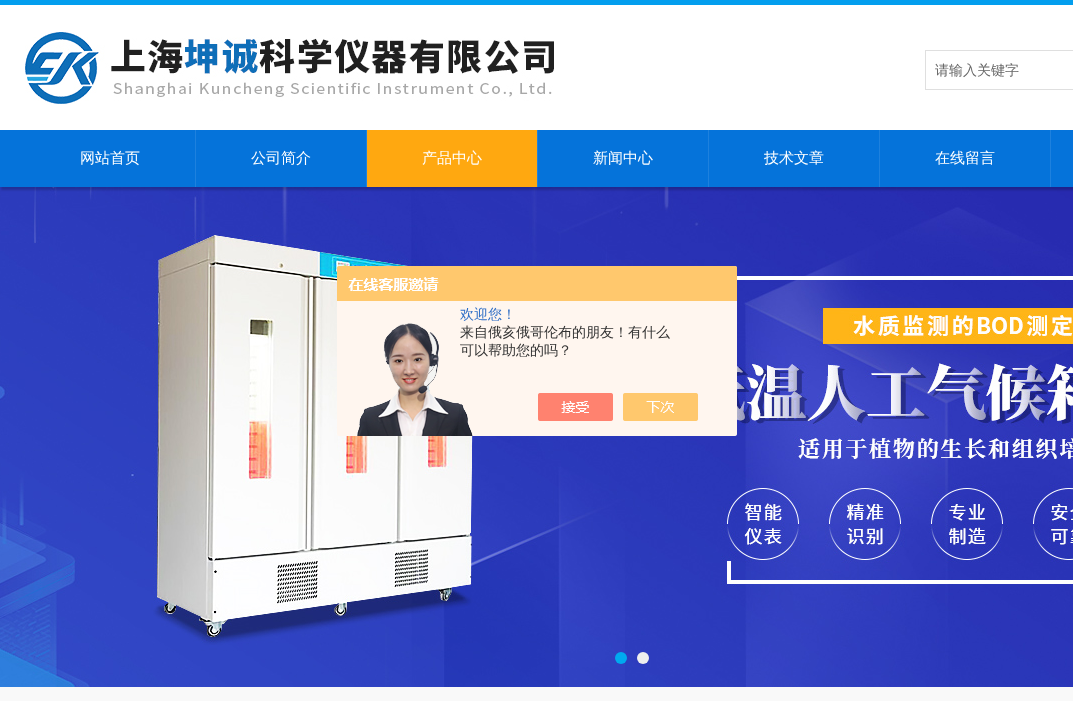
<svg xmlns="http://www.w3.org/2000/svg" width="1073" height="701">
	<rect width="100%" height="100%" fill="#FFFFFF" />
	<rect x="0" y="0" width="1073" height="5" fill="#039EEE" />
	<image x="25" y="32" width="529" height="73" href="assets/img1.png" />
	<rect x="925" y="50" width="148" height="1" fill="#DFDFDF" />
	<rect x="925" y="89" width="148" height="1" fill="#DFDFDF" />
	<rect x="925" y="50" width="1" height="40" fill="#DFDFDF" />
	<text x="935" y="75" font-family="WenQuanYi Zen Hei" font-size="14" font-weight="500" fill="#666666">请输入关键字</text>
	<image x="0" y="187" width="1073" height="500" href="assets/img2.png" />
	<rect x="1" y="135" width="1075" height="55" fill="#000000" fill-opacity="0.2" filter="blur(1px)" />
	<rect x="0" y="130" width="1073" height="57" fill="#0573DA" />
	<rect x="195" y="130" width="1" height="57" fill="#1E81DE" />
	<text x="80" y="163" font-family="WenQuanYi Zen Hei" font-size="15" font-weight="500" fill="#FFFFFF">网站首页</text>
	<rect x="366" y="130" width="1" height="57" fill="#1E81DE" />
	<text x="251" y="163" font-family="WenQuanYi Zen Hei" font-size="15" font-weight="500" fill="#FFFFFF">公司简介</text>
	<rect x="367" y="130" width="170" height="57" fill="#FFA810" />
	<rect x="537" y="130" width="1" height="57" fill="#1E81DE" />
	<text x="422" y="163" font-family="WenQuanYi Zen Hei" font-size="15" font-weight="500" fill="#FFFFFF">产品中心</text>
	<rect x="708" y="130" width="1" height="57" fill="#1E81DE" />
	<text x="593" y="163" font-family="WenQuanYi Zen Hei" font-size="15" font-weight="500" fill="#FFFFFF">新闻中心</text>
	<rect x="879" y="130" width="1" height="57" fill="#1E81DE" />
	<text x="764" y="163" font-family="WenQuanYi Zen Hei" font-size="15" font-weight="500" fill="#FFFFFF">技术文章</text>
	<rect x="1050" y="130" width="1" height="57" fill="#1E81DE" />
	<text x="935" y="163" font-family="WenQuanYi Zen Hei" font-size="15" font-weight="500" fill="#FFFFFF">在线留言</text>
	<circle cx="621" cy="658" r="6" fill="#00AAEF" />
	<circle cx="643" cy="658" r="6" fill="#EEEEEE" />
	<image x="337" y="266" width="400" height="170" href="assets/img3.png" />
	<text x="460" y="319" font-family="WenQuanYi Zen Hei" font-size="14" font-weight="500" fill="#2E6EC6">欢迎您！</text>
	<g font-family="WenQuanYi Zen Hei" font-size="14" font-weight="500" fill="#333333">
		<text x="460" y="337">来自俄亥俄哥伦布的朋友！有什么</text>
		<text x="460" y="355">可以帮助您的吗？</text>
	</g>
	<rect x="0" y="687" width="1073" height="14" fill="#F9F9F9" />
</svg>
